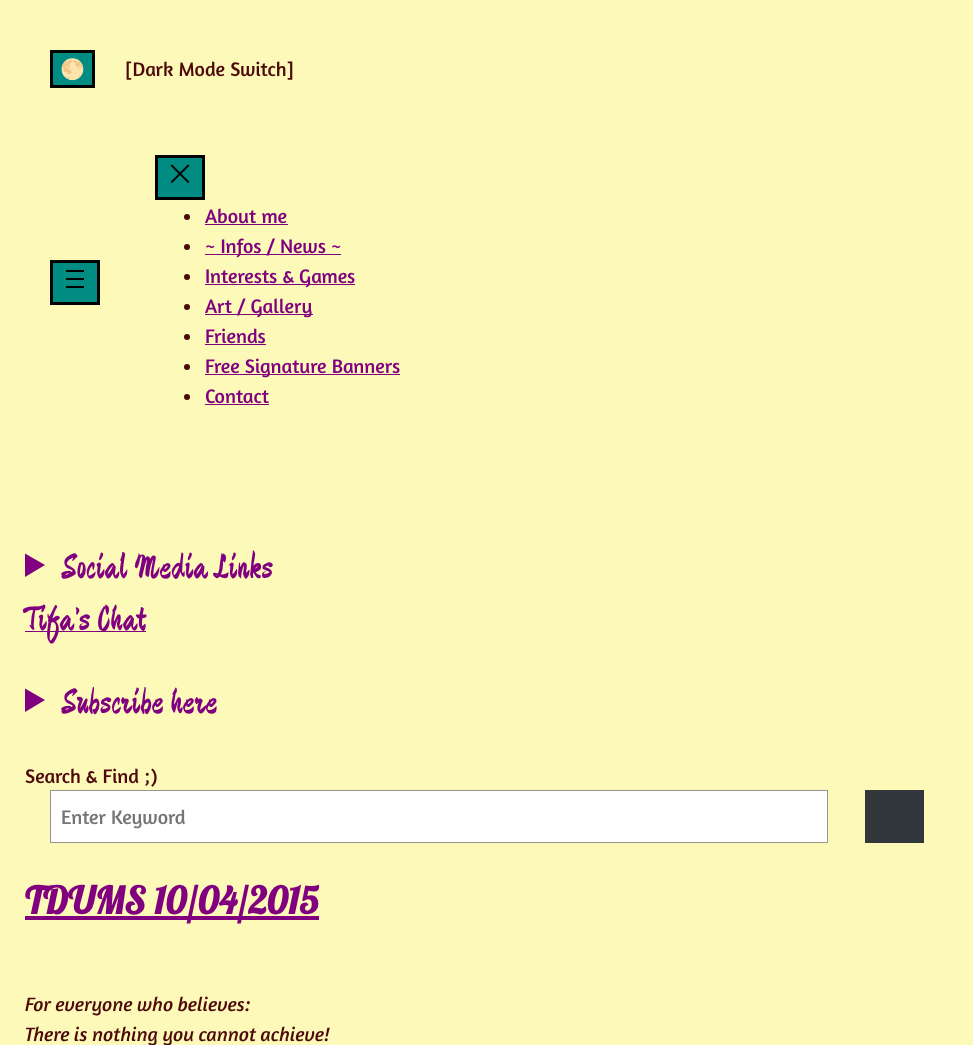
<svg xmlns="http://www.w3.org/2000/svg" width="973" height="1045">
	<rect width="100%" height="100%" fill="#FDF9B8" />
	<rect x="51.5" y="51.5" width="42" height="35" fill="#008B83" stroke="#000000" stroke-width="3" />
	<text x="60" y="76" font-family="Noto Color Emoji" font-size="20" fill="#4D090A">🌕</text>
	<text x="125" y="76" font-family="Amaranth" font-size="20" fill="#4D090A">[Dark Mode Switch]</text>
	<rect x="51.5" y="261.5" width="47" height="42" fill="#008B83" stroke="#000000" stroke-width="3" />
	<rect x="66" y="270" width="18" height="2" fill="#000000" />
	<rect x="66" y="278" width="18" height="2" fill="#000000" />
	<rect x="66" y="286" width="18" height="2" fill="#000000" />
	<rect x="156.5" y="156.5" width="47" height="42" fill="#008B83" stroke="#000000" stroke-width="3" />
	<image x="170" y="164" width="20" height="19" href="assets/img1.png" />
	<circle cx="187" cy="217" r="3" fill="#4D090A" />
	<text x="205" y="223" font-family="Amaranth" font-size="20" fill="#800080">About me</text>
	<rect x="205" y="224" width="83" height="1" fill="#800080" />
	<circle cx="187" cy="247" r="3" fill="#4D090A" />
	<rect x="205" y="254" width="136" height="1" fill="#800080" />
	<text x="205" y="253" font-family="Amaranth" font-size="20" fill="#800080">~ Infos / News ~</text>
	<circle cx="187" cy="277" r="3" fill="#4D090A" />
	<rect x="205" y="284" width="150" height="1" fill="#800080" />
	<text x="205" y="283" font-family="Amaranth" font-size="20" fill="#800080">Interests &amp; Games</text>
	<circle cx="187" cy="307" r="3" fill="#4D090A" />
	<rect x="205" y="314" width="108" height="1" fill="#800080" />
	<text x="205" y="313" font-family="Amaranth" font-size="20" fill="#800080">Art / Gallery</text>
	<circle cx="187" cy="337" r="3" fill="#4D090A" />
	<text x="205" y="343" font-family="Amaranth" font-size="20" fill="#800080">Friends</text>
	<rect x="205" y="344" width="61" height="1" fill="#800080" />
	<circle cx="187" cy="367" r="3" fill="#4D090A" />
	<rect x="205" y="374" width="195" height="1" fill="#800080" />
	<text x="205" y="373" font-family="Amaranth" font-size="20" fill="#800080">Free Signature Banners</text>
	<circle cx="187" cy="397" r="3" fill="#4D090A" />
	<text x="205" y="403" font-family="Amaranth" font-size="20" fill="#800080">Contact</text>
	<rect x="205" y="404" width="64" height="1" fill="#800080" />
	<path d="M25 553.5L45 565L25 577Z" fill="#800080" />
	<text x="62" y="578" font-family="Devonshire" font-size="35" fill="#800080">Social Media Links</text>
	<rect x="25" y="631" width="121" height="1" fill="#800080" />
	<text x="25" y="630" font-family="Devonshire" font-size="35" fill="#800080">Tifa’s Chat</text>
	<path d="M25 688.5L45 700L25 712Z" fill="#800080" />
	<text x="62" y="713" font-family="Devonshire" font-size="35" fill="#800080">Subscribe here</text>
	<text x="25" y="783" font-family="Amaranth" font-size="20" fill="#4D090A">Search &amp; Find ;)</text>
	<rect x="50.5" y="790.5" width="777" height="52" fill="#FFFFFF" stroke="#949494" />
	<text x="61" y="824" font-family="Amaranth" font-size="20" fill="#757575">Enter Keyword</text>
	<rect x="865" y="790" width="59" height="53" fill="#32373C" />
	<rect x="25" y="916" width="294" height="4" fill="#800080" />
	<text x="25" y="914" font-family="Lobster" font-size="37.5" font-weight="700" fill="#800080">TDUMS 10/04/2015</text>
	<g font-family="Amaranth" font-size="20" font-style="italic" fill="#4D090A">
		<text x="25" y="1011">For everyone who believes:</text>
		<text x="25" y="1041">There is nothing you cannot achieve!</text>
	</g>
</svg>
